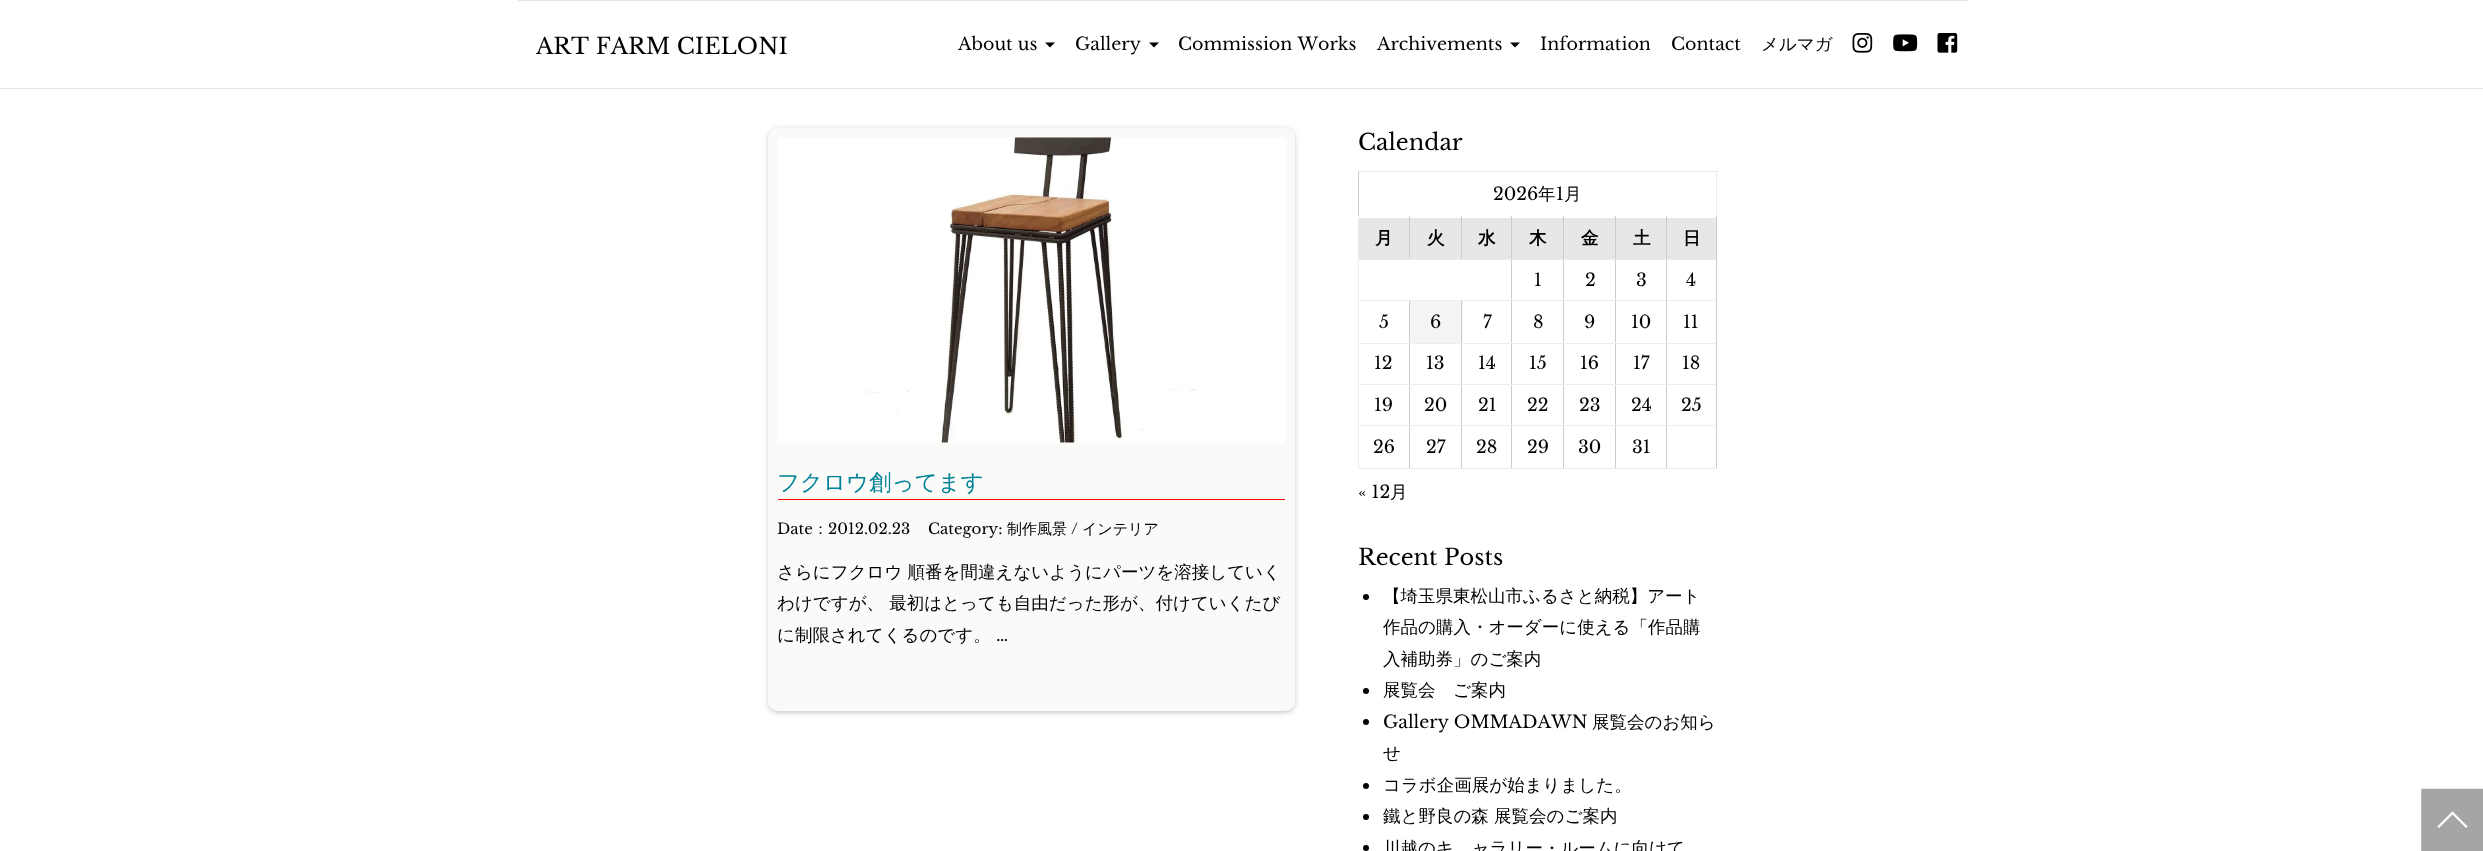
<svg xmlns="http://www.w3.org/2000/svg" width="2483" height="851">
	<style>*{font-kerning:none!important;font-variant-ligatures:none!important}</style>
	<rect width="100%" height="100%" fill="#FFFFFF" />
	<rect x="0" y="88" width="2483" height="1" fill="#E7E7E7" />
	<text x="536" y="54" font-family="Libre Baskerville" font-size="22.5" fill="#000000">ART FARM CIELONI</text>
	<rect x="518" y="0" width="1450" height="1" fill="#E7E7E7" />
	<text x="958" y="50" font-family="Libre Baskerville" font-size="17.5" fill="#000000">About us</text>
	<path d="M1045 42.5H1055L1050 47.5Z" fill="#000000" />
	<text x="1075" y="50" font-family="Libre Baskerville" font-size="17.5" fill="#000000">Gallery</text>
	<path d="M1149 42.5H1159L1154 47.5Z" fill="#000000" />
	<g font-family="Libre Baskerville" font-size="17.5" fill="#000000">
		<text x="1178" y="50">Commission Works</text>
		<text x="1377" y="50">Archivements</text>
	</g>
	<path d="M1510 42.5H1520L1515 47.5Z" fill="#000000" />
	<g font-family="Libre Baskerville" font-size="17.5" fill="#000000">
		<text x="1540" y="50">Information</text>
		<text x="1671" y="50">Contact</text>
	</g>
	<text x="1761" y="50" font-family="WenQuanYi Zen Hei" font-size="17.5" font-weight="500" fill="#000000">メルマガ</text>
	<image x="1852" y="33" width="21" height="20" href="assets/img1.png" />
	<image x="1893" y="34" width="25" height="18" href="assets/img2.png" />
	<image x="1937" y="33" width="21" height="20" href="assets/img3.png" />
	<rect x="768" y="129" width="527" height="584" rx="10" fill="#000000" fill-opacity="0.2" filter="blur(2.5px)" />
	<rect x="768" y="128" width="527" height="583" rx="10" fill="#FAFAF9" />
	<rect x="778" y="138" width="507" height="305" fill="#FFFFFF" />
	<image x="864" y="137" width="333" height="306" href="assets/img4.png" />
	<rect x="778" y="499" width="507" height="1" fill="#FF0000" />
	<text x="777" y="490" font-family="WenQuanYi Zen Hei" font-size="22.5" font-weight="500" fill="#018296">フクロウ創ってます</text>
	<text x="777" y="534" font-family="Libre Baskerville" font-size="15" fill="#000000">Date</text>
	<text x="813" y="534" font-family="WenQuanYi Zen Hei" font-size="15" font-weight="500" fill="#000000">：</text>
	<g font-family="Libre Baskerville" font-size="15" fill="#000000">
		<text x="828" y="534">2012.02.23</text>
		<text x="928" y="534">Category:</text>
	</g>
	<text x="1007" y="534" font-family="WenQuanYi Zen Hei" font-size="15" font-weight="500" fill="#000000">制作風景</text>
	<text x="1071" y="534" font-family="Libre Baskerville" font-size="15" fill="#000000">/</text>
	<text x="1082" y="534" font-family="WenQuanYi Zen Hei" font-size="15" font-weight="500" fill="#000000">インテリア</text>
	<g font-family="WenQuanYi Zen Hei" font-size="17.5" font-weight="500" fill="#000000">
		<text x="777" y="578">さらにフクロウ 順番を間違えないようにパーツを溶接していく</text>
		<text x="777" y="609">わけですが、 最初はとっても自由だった形が、付けていくたび</text>
		<text x="777" y="641">に制限されてくるのです。</text>
	</g>
	<text x="996" y="641" font-family="Libre Baskerville" font-size="17.5" fill="#000000">…</text>
	<text x="1358" y="150" font-family="Libre Baskerville" font-size="22.5" fill="#000000">Calendar</text>
	<rect x="1358" y="171" width="360" height="1" fill="#ECECEC" />
	<rect x="1716" y="171" width="1" height="45" fill="#ECECEC" />
	<rect x="1358" y="171" width="1" height="45" fill="#CCCCCC" />
	<text x="1493" y="200" font-family="Libre Baskerville" font-size="17.5" fill="#000000">2026</text>
	<text x="1538" y="200" font-family="WenQuanYi Zen Hei" font-size="17.5" font-weight="500" fill="#000000">年</text>
	<text x="1556" y="200" font-family="Libre Baskerville" font-size="17.5" fill="#000000">1</text>
	<text x="1564" y="200" font-family="WenQuanYi Zen Hei" font-size="17.5" font-weight="500" fill="#000000">月</text>
	<rect x="1359" y="218" width="50" height="41" fill="#E7E7E7" />
	<rect x="1410" y="218" width="153" height="41" fill="#E7E7E7" />
	<rect x="1716" y="216" width="1" height="253" fill="#CCCCCC" />
	<rect x="1666" y="468" width="52" height="1" fill="#ECECEC" />
	<rect x="1666" y="425" width="1" height="44" fill="#CCCCCC" />
	<rect x="1666" y="425" width="52" height="1" fill="#ECECEC" />
	<rect x="1666" y="384" width="1" height="42" fill="#CCCCCC" />
	<rect x="1666" y="384" width="52" height="1" fill="#ECECEC" />
	<rect x="1666" y="343" width="1" height="42" fill="#CCCCCC" />
	<rect x="1666" y="343" width="52" height="1" fill="#ECECEC" />
	<rect x="1666" y="300" width="1" height="44" fill="#CCCCCC" />
	<rect x="1666" y="300" width="52" height="1" fill="#ECECEC" />
	<rect x="1666" y="259" width="1" height="42" fill="#CCCCCC" />
	<rect x="1666" y="259" width="52" height="1" fill="#ECECEC" />
	<rect x="1666" y="216" width="1" height="44" fill="#CCCCCC" />
	<rect x="1615" y="468" width="53" height="1" fill="#ECECEC" />
	<rect x="1615" y="425" width="1" height="44" fill="#CCCCCC" />
	<rect x="1615" y="425" width="53" height="1" fill="#ECECEC" />
	<rect x="1615" y="384" width="1" height="42" fill="#CCCCCC" />
	<rect x="1615" y="384" width="53" height="1" fill="#ECECEC" />
	<rect x="1615" y="343" width="1" height="42" fill="#CCCCCC" />
	<rect x="1615" y="343" width="53" height="1" fill="#ECECEC" />
	<rect x="1615" y="300" width="1" height="44" fill="#CCCCCC" />
	<rect x="1615" y="300" width="53" height="1" fill="#ECECEC" />
	<rect x="1615" y="259" width="1" height="42" fill="#CCCCCC" />
	<rect x="1615" y="259" width="53" height="1" fill="#ECECEC" />
	<rect x="1615" y="216" width="1" height="44" fill="#CCCCCC" />
	<rect x="1563" y="468" width="53" height="1" fill="#ECECEC" />
	<rect x="1563" y="425" width="1" height="44" fill="#CCCCCC" />
	<rect x="1563" y="425" width="53" height="1" fill="#ECECEC" />
	<rect x="1563" y="384" width="1" height="42" fill="#CCCCCC" />
	<rect x="1563" y="384" width="53" height="1" fill="#ECECEC" />
	<rect x="1563" y="343" width="1" height="42" fill="#CCCCCC" />
	<rect x="1563" y="343" width="53" height="1" fill="#ECECEC" />
	<rect x="1563" y="300" width="1" height="44" fill="#CCCCCC" />
	<rect x="1563" y="300" width="53" height="1" fill="#ECECEC" />
	<rect x="1563" y="259" width="1" height="42" fill="#CCCCCC" />
	<rect x="1563" y="259" width="53" height="1" fill="#ECECEC" />
	<rect x="1563" y="216" width="1" height="44" fill="#CCCCCC" />
	<rect x="1511" y="468" width="53" height="1" fill="#ECECEC" />
	<rect x="1511" y="425" width="1" height="44" fill="#CCCCCC" />
	<rect x="1511" y="425" width="53" height="1" fill="#ECECEC" />
	<rect x="1511" y="384" width="1" height="42" fill="#CCCCCC" />
	<rect x="1511" y="384" width="53" height="1" fill="#ECECEC" />
	<rect x="1511" y="343" width="1" height="42" fill="#CCCCCC" />
	<rect x="1511" y="343" width="53" height="1" fill="#ECECEC" />
	<rect x="1511" y="300" width="1" height="44" fill="#CCCCCC" />
	<rect x="1511" y="300" width="53" height="1" fill="#ECECEC" />
	<rect x="1511" y="259" width="1" height="42" fill="#CCCCCC" />
	<rect x="1511" y="259" width="53" height="1" fill="#ECECEC" />
	<rect x="1511" y="216" width="1" height="44" fill="#CCCCCC" />
	<rect x="1461" y="259" width="52" height="1" fill="#ECECEC" />
	<rect x="1461" y="216" width="1" height="44" fill="#CCCCCC" />
	<rect x="1409" y="259" width="54" height="1" fill="#ECECEC" />
	<rect x="1409" y="216" width="1" height="44" fill="#CCCCCC" />
	<rect x="1410" y="301" width="53" height="42" fill="#F4F4F4" />
	<rect x="1461" y="468" width="52" height="1" fill="#ECECEC" />
	<rect x="1461" y="425" width="1" height="44" fill="#CCCCCC" />
	<rect x="1461" y="425" width="52" height="1" fill="#ECECEC" />
	<rect x="1461" y="384" width="1" height="42" fill="#CCCCCC" />
	<rect x="1461" y="384" width="52" height="1" fill="#ECECEC" />
	<rect x="1461" y="343" width="1" height="42" fill="#CCCCCC" />
	<rect x="1461" y="343" width="52" height="1" fill="#ECECEC" />
	<rect x="1461" y="300" width="1" height="44" fill="#CCCCCC" />
	<rect x="1409" y="468" width="54" height="1" fill="#ECECEC" />
	<rect x="1409" y="425" width="1" height="44" fill="#CCCCCC" />
	<rect x="1409" y="425" width="54" height="1" fill="#ECECEC" />
	<rect x="1409" y="384" width="1" height="42" fill="#CCCCCC" />
	<rect x="1409" y="384" width="54" height="1" fill="#ECECEC" />
	<rect x="1409" y="343" width="1" height="42" fill="#CCCCCC" />
	<rect x="1409" y="343" width="54" height="1" fill="#ECECEC" />
	<rect x="1409" y="300" width="1" height="44" fill="#CCCCCC" />
	<rect x="1358" y="468" width="52" height="1" fill="#ECECEC" />
	<rect x="1358" y="425" width="1" height="44" fill="#ECECEC" />
	<rect x="1358" y="425" width="52" height="1" fill="#ECECEC" />
	<rect x="1358" y="384" width="1" height="42" fill="#ECECEC" />
	<rect x="1358" y="384" width="52" height="1" fill="#ECECEC" />
	<rect x="1358" y="343" width="1" height="42" fill="#ECECEC" />
	<rect x="1358" y="343" width="52" height="1" fill="#ECECEC" />
	<rect x="1358" y="300" width="1" height="44" fill="#ECECEC" />
	<rect x="1358" y="300" width="155" height="1" fill="#ECECEC" />
	<rect x="1358" y="259" width="1" height="42" fill="#ECECEC" />
	<rect x="1358" y="259" width="52" height="1" fill="#ECECEC" />
	<rect x="1358" y="216" width="1" height="44" fill="#ECECEC" />
	<g font-family="WenQuanYi Zen Hei" font-size="17.5" font-weight="700" fill="#000000">
		<text x="1375" y="244">月</text>
		<text x="1427" y="244">火</text>
		<text x="1478" y="244">水</text>
		<text x="1529" y="244">木</text>
	</g>
	<rect x="1564" y="218" width="51" height="41" fill="#E7E7E7" />
	<text x="1581" y="244" font-family="WenQuanYi Zen Hei" font-size="17.5" font-weight="700" fill="#000000">金</text>
	<rect x="1616" y="218" width="50" height="41" fill="#E7E7E7" />
	<text x="1633" y="244" font-family="WenQuanYi Zen Hei" font-size="17.5" font-weight="700" fill="#000000">土</text>
	<rect x="1667" y="218" width="49" height="41" fill="#E7E7E7" />
	<text x="1683" y="244" font-family="WenQuanYi Zen Hei" font-size="17.5" font-weight="700" fill="#000000">日</text>
	<g font-family="Libre Baskerville" font-size="17.5" fill="#000000">
		<text x="1534" y="286">1</text>
		<text x="1585" y="286">2</text>
		<text x="1636" y="286">3</text>
		<text x="1686" y="286">4</text>
		<text x="1379" y="328">5</text>
		<text x="1430" y="328">6</text>
		<text x="1483" y="328">7</text>
		<text x="1533" y="328">8</text>
		<text x="1584" y="328">9</text>
		<text x="1631" y="328">10</text>
		<text x="1683" y="328">11</text>
		<text x="1374" y="369">12</text>
		<text x="1426" y="369">13</text>
		<text x="1478" y="369">14</text>
		<text x="1529" y="369">15</text>
		<text x="1580" y="369">16</text>
		<text x="1633" y="369">17</text>
		<text x="1682" y="369">18</text>
		<text x="1374" y="411">19</text>
		<text x="1424" y="411">20</text>
		<text x="1478" y="411">21</text>
		<text x="1527" y="411">22</text>
		<text x="1579" y="411">23</text>
		<text x="1631" y="411">24</text>
		<text x="1681" y="411">25</text>
		<text x="1373" y="453">26</text>
		<text x="1426" y="453">27</text>
		<text x="1476" y="453">28</text>
		<text x="1527" y="453">29</text>
		<text x="1578" y="453">30</text>
		<text x="1632" y="453">31</text>
		<text x="1358" y="498">« 12</text>
	</g>
	<text x="1390" y="498" font-family="WenQuanYi Zen Hei" font-size="17.5" font-weight="500" fill="#000000">月</text>
	<text x="1358" y="565" font-family="Libre Baskerville" font-size="22.5" fill="#000000">Recent Posts</text>
	<circle cx="1366" cy="597" r="3" fill="#000000" />
	<g font-family="WenQuanYi Zen Hei" font-size="17.5" font-weight="500" fill="#000000">
		<text x="1383" y="602">【埼玉県東松山市ふるさと納税】アート</text>
		<text x="1383" y="633">作品の購入・オーダーに使える「作品購</text>
		<text x="1383" y="665">入補助券」のご案内</text>
	</g>
	<circle cx="1366" cy="691" r="3" fill="#000000" />
	<text x="1383" y="696" font-family="WenQuanYi Zen Hei" font-size="17.5" font-weight="500" fill="#000000">展覧会　ご案内</text>
	<circle cx="1366" cy="722" r="3" fill="#000000" />
	<text x="1383" y="728" font-family="Libre Baskerville" font-size="17.5" fill="#000000">Gallery OMMADAWN</text>
	<g font-family="WenQuanYi Zen Hei" font-size="17.5" font-weight="500" fill="#000000">
		<text x="1592" y="728">展覧会のお知ら</text>
		<text x="1383" y="759">せ</text>
	</g>
	<circle cx="1366" cy="786" r="3" fill="#000000" />
	<text x="1383" y="791" font-family="WenQuanYi Zen Hei" font-size="17.5" font-weight="500" fill="#000000">コラボ企画展が始まりました。</text>
	<circle cx="1366" cy="817" r="3" fill="#000000" />
	<text x="1383" y="822" font-family="WenQuanYi Zen Hei" font-size="17.5" font-weight="500" fill="#000000">鐵と野良の森 展覧会のご案内</text>
	<circle cx="1366" cy="848" r="3" fill="#000000" />
	<text x="1383" y="854" font-family="WenQuanYi Zen Hei" font-size="17.5" font-weight="500" fill="#000000">川越のギャラリー・ルームに向けて</text>
	<image x="2421" y="788" width="62" height="63" href="assets/img5.png" />
</svg>
